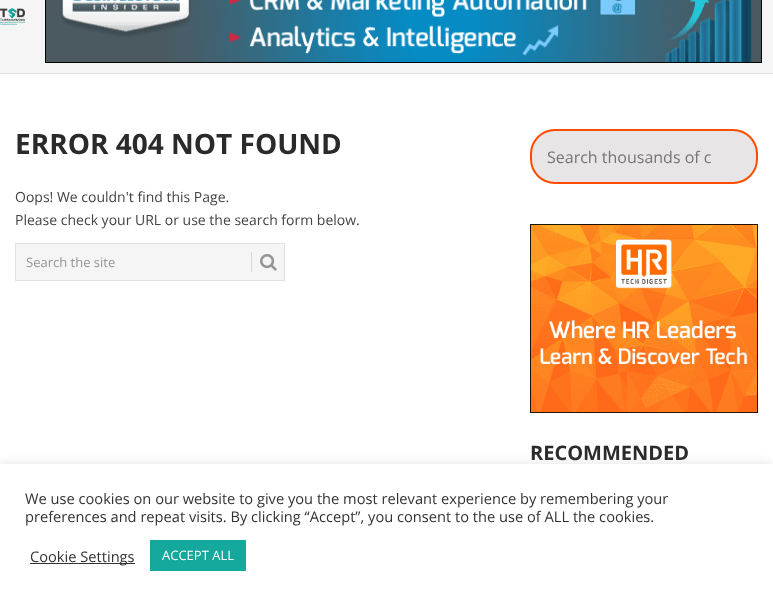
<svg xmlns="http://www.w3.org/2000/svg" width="773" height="601">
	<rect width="100%" height="100%" fill="#FFFFFF" />
	<rect x="0" y="0" width="773" height="73" fill="#F5F5F5" />
	<image x="0" y="8" width="25" height="17" href="assets/img1.png" />
	<image x="45" y="0" width="717" height="63" href="assets/img2.png" />
	<rect x="0" y="73" width="773" height="1" fill="#E2E2E2" />
	<text x="15" y="154" font-family="Open Sans" font-size="28" font-weight="700" fill="#2A2A2A">ERROR 404 NOT FOUND</text>
	<g font-family="Open Sans" font-size="14" fill="#444444">
		<text x="15" y="202">Oops! We couldn't find this Page.</text>
		<text x="15" y="225">Please check your URL or use the search form below.</text>
	</g>
	<rect x="15.5" y="243.5" width="269" height="37" fill="#F5F5F5" stroke="#E2E2E2" />
	<text x="26" y="267" font-family="Open Sans" font-size="13" fill="#959595">Search the site</text>
	<rect x="251" y="252" width="1" height="20" fill="#D8D8D8" />
	<image x="260" y="254" width="17" height="17" href="assets/img3.png" />
	<rect x="531" y="130" width="226" height="53" rx="24" fill="#E7E5E6" stroke="#FE4C00" stroke-width="2" />
	<text x="547" y="163" font-family="Open Sans" font-size="16" fill="#757575">Search thousands of c</text>
	<image x="530" y="224" width="228" height="189" href="assets/img4.png" />
	<text x="530" y="460" font-family="Open Sans" font-size="20" font-weight="700" fill="#2A2A2A">RECOMMENDED</text>
	<rect x="0" y="463" width="773" height="137" fill="#ACABAB" fill-opacity="0.3" filter="blur(5px)" />
	<rect x="0" y="464" width="773" height="137" fill="#FFFFFF" />
	<g font-family="Open Sans" font-size="14.65" fill="#333333">
		<text x="25" y="504">We use cookies on our website to give you the most relevant experience by remembering your</text>
		<text x="25" y="522">preferences and repeat visits. By clicking “Accept”, you consent to the use of ALL the cookies.</text>
	</g>
	<rect x="30" y="563" width="105" height="1" fill="#333333" />
	<text x="30" y="562" font-family="Open Sans" font-size="14.65" fill="#333333">Cookie Settings</text>
	<rect x="150" y="540" width="96" height="31" fill="#15A99D" />
	<text x="162" y="560" font-family="Open Sans" font-size="13" fill="#FFFFFF">ACCEPT ALL</text>
</svg>
